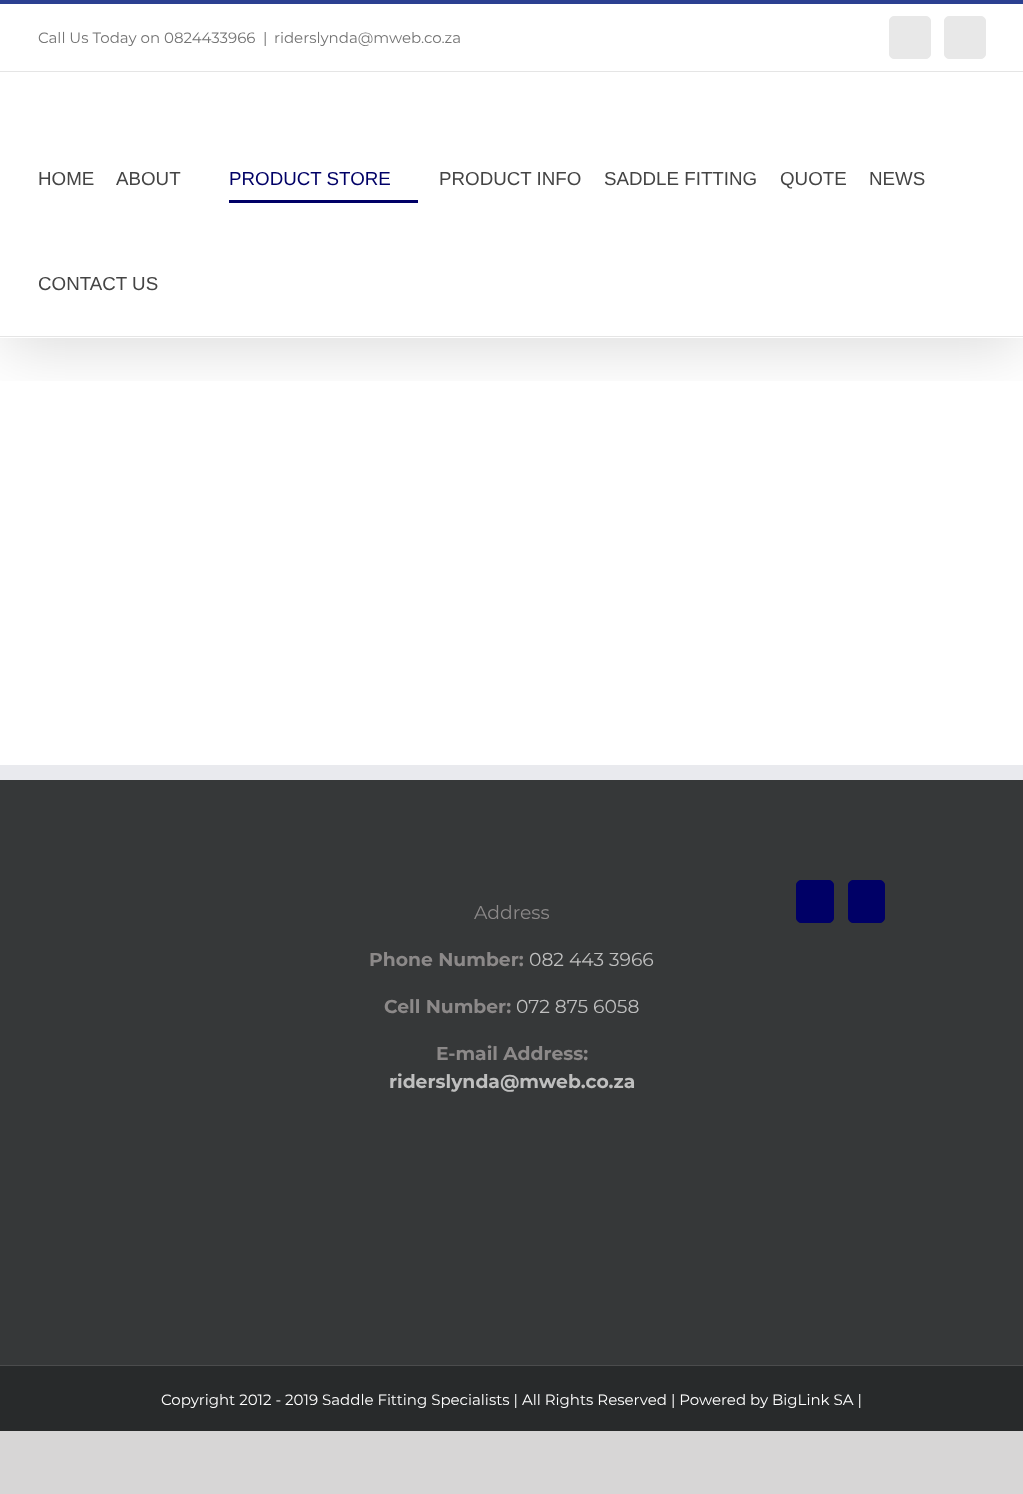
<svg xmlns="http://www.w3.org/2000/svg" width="1023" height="1494">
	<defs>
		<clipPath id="clip1"><rect x="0" y="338" width="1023" height="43" /></clipPath>
	</defs>
	<rect width="100%" height="100%" fill="#D7D6D6" />
	<rect x="0" y="4" width="1023" height="761" fill="#FFFFFF" />
	<g clip-path="url(#clip1)">
		<rect x="3" y="15" width="1018" height="333" fill="#000000" fill-opacity="0.14" filter="blur(31px)" />
	</g>
	<rect x="0" y="0" width="1023" height="4" fill="#2B4091" />
	<rect x="0" y="71" width="1023" height="1" fill="#E5E5E5" />
	<g font-family="Montserrat" font-size="15" fill="#747474">
		<text x="38" y="43">Call Us Today on 0824433966</text>
		<text x="263" y="43">|</text>
		<text x="274" y="43">riderslynda@mweb.co.za</text>
	</g>
	<rect x="889.5" y="16.5" width="41" height="42" rx="4.5" fill="#E8E8E8" stroke="#E8E8E8" />
	<rect x="944.5" y="16.5" width="41" height="42" rx="4.5" fill="#E8E8E8" stroke="#E8E8E8" />
	<rect x="0" y="337" width="1023" height="1" fill="#FFFFFF" />
	<rect x="0" y="336" width="1023" height="1" fill="#E5E5E5" />
	<g font-family="Liberation Sans" font-size="18.75" fill="#444444">
		<text x="38" y="185">HOME</text>
		<text x="116" y="185">ABOUT</text>
	</g>
	<text x="229" y="185" font-family="Liberation Sans" font-size="18.75" fill="#000066">PRODUCT STORE</text>
	<rect x="229" y="200" width="189" height="3" fill="#000066" />
	<g font-family="Liberation Sans" font-size="18.75" fill="#444444">
		<text x="439" y="185">PRODUCT INFO</text>
		<text x="604" y="185">SADDLE FITTING</text>
		<text x="780" y="185">QUOTE</text>
		<text x="869" y="185">NEWS</text>
		<text x="38" y="290">CONTACT US</text>
	</g>
	<rect x="0" y="780" width="1023" height="585" fill="#363839" />
	<rect x="0" y="765" width="1023" height="15" fill="#E9EAEE" />
	<text x="474" y="919" font-family="Montserrat" font-size="18.75" fill="#8C8989">Address</text>
	<text x="369" y="966" font-family="Montserrat" font-size="18.75" font-weight="700" fill="#8C8989">Phone Number:</text>
	<text x="529" y="966" font-family="Montserrat" font-size="18.75" fill="#BFBFBF">082 443 3966</text>
	<text x="384" y="1013" font-family="Montserrat" font-size="18.75" font-weight="700" fill="#8C8989">Cell Number:</text>
	<text x="516" y="1013" font-family="Montserrat" font-size="18.75" fill="#BFBFBF">072 875 6058</text>
	<text x="436" y="1060" font-family="Montserrat" font-size="18.75" font-weight="700" fill="#8C8989">E-mail Address:</text>
	<text x="389" y="1088" font-family="Montserrat" font-size="18.75" font-weight="700" fill="#BFBFBF">riderslynda@mweb.co.za</text>
	<rect x="796.5" y="880.5" width="37" height="42" rx="4.5" fill="#000066" stroke="#000066" />
	<rect x="848.5" y="880.5" width="36" height="42" rx="4.5" fill="#000066" stroke="#000066" />
	<rect x="0" y="1366" width="1023" height="65" fill="#282A2B" />
	<rect x="0" y="1365" width="1023" height="1" fill="#4B4C4D" />
	<text x="161" y="1405" font-family="Montserrat" font-size="15" fill="#FFFFFF">Copyright 2012 - 2019 Saddle Fitting Specialists | All Rights Reserved | Powered by BigLink SA |</text>
</svg>
